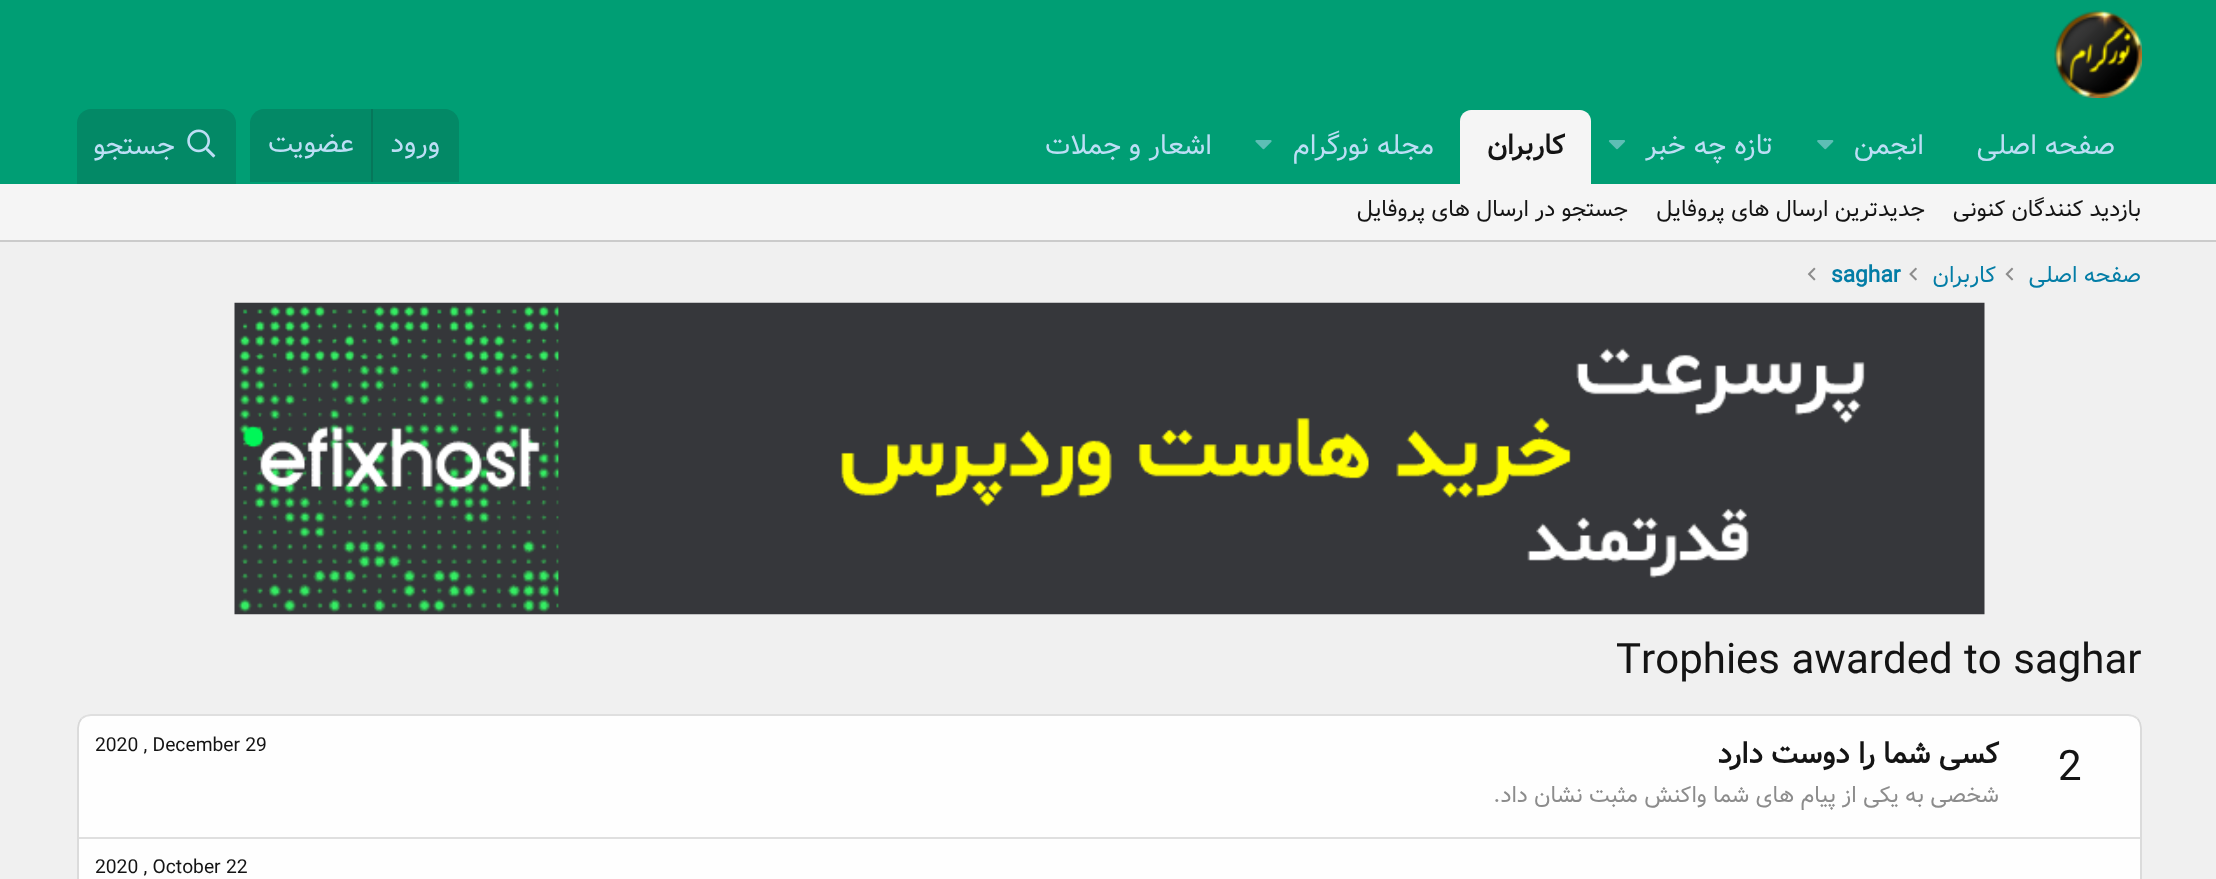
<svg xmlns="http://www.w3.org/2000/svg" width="2216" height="879">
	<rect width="100%" height="100%" fill="#F0F0F0" />
	<rect x="0" y="0" width="2216" height="184" fill="#009E74" />
	<image x="2054" y="10" width="88" height="88" href="assets/img1.png" />
	<g font-family="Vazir" font-size="28" direction="rtl" fill="#BCDEF5">
		<text x="2115" y="154">صفحه اصلی</text>
		<text x="1924" y="154">انجمن</text>
	</g>
	<image x="1817" y="140" width="17" height="10" href="assets/img2.png" />
	<text x="1773" y="154" font-family="Vazir" font-size="28" direction="rtl" fill="#BCDEF5">تازه چه خبر</text>
	<image x="1608" y="140" width="18" height="10" href="assets/img3.png" />
	<path d="M1471 110H1580C1586 110 1591 115 1591 121V184H1460V121C1460 115 1465 110 1471 110Z" fill="#F5F5F5" />
	<text x="1565" y="154" font-family="Vazir" font-size="28" font-weight="700" direction="rtl" fill="#141414">کاربران</text>
	<text x="1434" y="154" font-family="Vazir" font-size="28" direction="rtl" fill="#BCDEF5">مجله نورگرام</text>
	<image x="1255" y="140" width="17" height="10" href="assets/img4.png" />
	<text x="1212" y="154" font-family="Vazir" font-size="28" direction="rtl" fill="#BCDEF5">اشعار و جملات</text>
	<path d="M264 109H445C452.5 109 459 115.5 459 123V182H250V123C250 115.5 256.5 109 264 109Z" fill="#038966" />
	<text x="440" y="152" font-family="Vazir" font-size="28" direction="rtl" fill="#BCDEF5">ورود</text>
	<rect x="371" y="109" width="2" height="73" fill="#06775A" />
	<text x="354" y="152" font-family="Vazir" font-size="28" direction="rtl" fill="#BCDEF5">عضویت</text>
	<path d="M91 109H222C229.5 109 236 115.5 236 123V184H77V123C77 115.5 83.5 109 91 109Z" fill="#038966" />
	<image x="187" y="129" width="29" height="29" href="assets/img5.png" />
	<text x="175" y="154" font-family="Vazir" font-size="28" direction="rtl" fill="#BCDEF5">جستجو</text>
	<rect x="0" y="184" width="2216" height="56" fill="#F5F5F5" />
	<rect x="0" y="240" width="2216" height="2" fill="#CBCBCB" />
	<g font-family="Vazir" font-size="22.75" direction="rtl" fill="#141414">
		<text x="2141" y="216">بازدید کنندگان کنونی</text>
		<text x="1925" y="216">جدیدترین ارسال های پروفایل</text>
		<text x="1628" y="216">جستجو در ارسال های پروفایل</text>
	</g>
	<text x="2141" y="282" font-family="Vazir" font-size="22.75" direction="rtl" fill="#037DA6">صفحه اصلی</text>
	<image x="2005" y="267" width="9" height="14" href="assets/img6.png" />
	<text x="1996" y="282" font-family="Vazir" font-size="22.75" direction="rtl" fill="#037DA6">کاربران</text>
	<image x="1909" y="267" width="8" height="14" href="assets/img7.png" />
	<text x="1831" y="282" font-family="Vazir" font-size="22.75" font-weight="700" fill="#037DA6">saghar</text>
	<image x="1807" y="267" width="9" height="14" href="assets/img8.png" />
	<image x="234" y="302" width="1751" height="313" href="assets/img9.png" />
	<text x="1616" y="673" font-family="Vazir" font-size="42" fill="#141414">Trophies awarded to saghar</text>
	<rect x="77" y="714" width="2065" height="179" rx="14" fill="#FEFEFE" />
	<path d="M81.5 718.5C84 716.5 87.5 715 91 715H2128C2131.5 715 2135 716.5 2137.5 718.5" fill="none" stroke="#DFDFDF" stroke-width="1.8" />
	<path d="M2137.5 718.5C2139.5 721 2141 724.5 2141 728V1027C2141 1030.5 2139.5 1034 2137.5 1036.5" fill="none" stroke="#D8D8D8" stroke-width="1.8" />
	<path d="M81.5 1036.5C79.5 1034 78 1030.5 78 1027V728C78 724.5 79.5 721 81.5 718.5" fill="none" stroke="#D8D8D8" stroke-width="1.8" />
	<text x="2058" y="780" font-family="Vazir" font-size="42" fill="#141414">2</text>
	<text x="1999" y="763" font-family="Vazir" font-size="29.75" font-weight="700" direction="rtl" fill="#141414">کسی شما را دوست دارد</text>
	<text x="95" y="751" font-family="Vazir" font-size="19.25" fill="#141414">2020 , December 29</text>
	<text x="1999" y="802" font-family="Vazir" font-size="22.75" direction="rtl" fill="#8C8C8C">شخصی به یکی از پیام های شما واکنش مثبت نشان داد.</text>
	<rect x="79" y="837" width="2061" height="2" fill="#DFDFDF" />
	<text x="95" y="873" font-family="Vazir" font-size="19.25" fill="#141414">2020 , October 22</text>
</svg>
